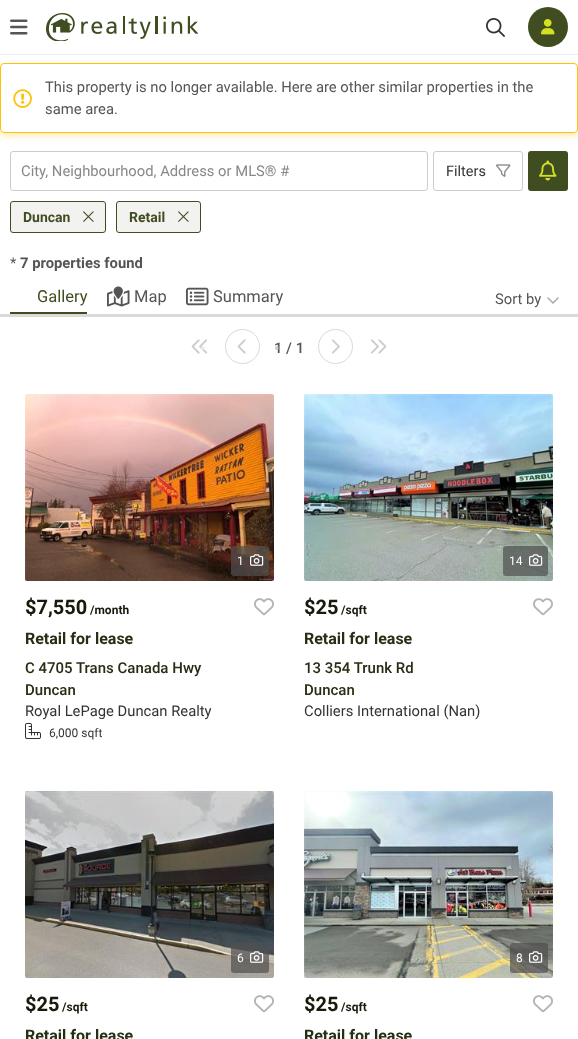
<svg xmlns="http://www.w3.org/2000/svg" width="578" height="1039">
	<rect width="100%" height="100%" fill="#FFFFFF" />
	<rect x="0" y="54" width="578" height="1" fill="#ECECEC" />
	<image x="10" y="19" width="18" height="16" href="assets/img1.png" />
	<image x="46" y="13" width="152" height="28" href="assets/img2.png" />
	<image x="486" y="18" width="19" height="19" href="assets/img3.png" />
	<circle cx="548" cy="27" r="20" fill="#3F4D21" />
	<image x="541" y="19" width="14" height="16" href="assets/img4.png" />
	<rect x="0" y="66" width="578" height="70" rx="4" fill="#FFC107" fill-opacity="0.3" filter="blur(3px)" />
	<rect x="0" y="63" width="578" height="70" rx="4" fill="#FFFFFF" />
	<image x="13" y="89" width="19" height="19" href="assets/img5.png" />
	<rect x="0.5" y="63.5" width="577" height="69" rx="3.5" fill="none" stroke="#FFC107" />
	<g font-family="Roboto" font-size="14.8" fill="#555555">
		<text x="45" y="92">This property is no longer available. Here are other similar properties in the</text>
		<text x="45" y="114">same area.</text>
	</g>
	<rect x="10.5" y="151.5" width="417" height="39" rx="2.5" fill="none" stroke="#CCCCCC" />
	<text x="21" y="176" font-family="Roboto" font-size="14.8" fill="#888888">City, Neighbourhood, Address or MLS® #</text>
	<rect x="433.5" y="151.5" width="89" height="39" rx="2.5" fill="none" stroke="#CCCCCC" />
	<text x="446" y="176" font-family="Roboto" font-size="14.5" fill="#333333">Filters</text>
	<image x="496" y="164" width="15" height="13" href="assets/img6.png" />
	<rect x="528" y="151" width="40" height="40" rx="3" fill="#3F4D21" />
	<image x="539" y="160" width="18" height="21" href="assets/img7.png" />
	<rect x="10.5" y="201.5" width="95" height="31" rx="2.5" fill="#F4F2F1" stroke="#3F4D21" />
	<text x="23" y="222" font-family="Roboto" font-size="14" font-weight="700" fill="#3F4D21">Duncan</text>
	<image x="83" y="211" width="11" height="11" href="assets/img8.png" />
	<rect x="116.5" y="201.5" width="84" height="31" rx="2.5" fill="#F4F2F1" stroke="#3F4D21" />
	<text x="129" y="222" font-family="Roboto" font-size="14" font-weight="700" fill="#3F4D21">Retail</text>
	<image x="178" y="211" width="11" height="11" href="assets/img8.png" />
	<rect x="0" y="314" width="578" height="3" fill="#DADADA" />
	<text x="10" y="268" font-family="Roboto" font-size="14.8" fill="#555555">*</text>
	<text x="20" y="268" font-family="Roboto" font-size="14.8" font-weight="700" fill="#555555">7 properties found</text>
	<rect x="10" y="312" width="77" height="2" fill="#3F4D21" />
	<text x="37" y="302" font-family="Roboto" font-size="16.5" fill="#3F4D21">Gallery</text>
	<image x="107" y="286" width="23" height="21" href="assets/img9.png" />
	<text x="134" y="302" font-family="Roboto" font-size="16.5" fill="#555555">Map</text>
	<image x="186" y="287" width="23" height="19" href="assets/img10.png" />
	<text x="213" y="302" font-family="Roboto" font-size="16.5" fill="#555555">Summary</text>
	<text x="495" y="304" font-family="Roboto" font-size="14.8" fill="#555555">Sort by</text>
	<image x="547" y="297" width="12" height="7" href="assets/img11.png" />
	<image x="191" y="339" width="16" height="15" href="assets/img12.png" />
	<text x="200" y="354" font-family="Roboto" font-size="16" font-weight="500" fill="#EAEAEA">•</text>
	<circle cx="242.5" cy="346.5" r="17" fill="none" stroke="#DADADA" />
	<image x="237" y="339" width="9" height="15" href="assets/img13.png" />
	<text x="274" y="353" font-family="Roboto" font-size="14.8" font-weight="500" fill="#555555">1 / 1</text>
	<text x="274" y="354" font-family="Roboto" font-size="16" font-weight="500" fill="#CACACA">•</text>
	<circle cx="335.5" cy="346.5" r="17" fill="none" stroke="#DADADA" />
	<image x="332" y="339" width="8" height="15" href="assets/img14.png" />
	<image x="371" y="339" width="16" height="15" href="assets/img15.png" />
	<image x="25" y="394" width="249" height="187" href="assets/img16.png" />
	<rect x="231" y="546" width="38" height="30" rx="3" fill="#505050" fill-opacity="0.7" />
	<text x="237" y="565" font-family="Roboto" font-size="12" fill="#FFFFFF">1</text>
	<image x="250" y="554" width="14" height="12" href="assets/img17.png" />
	<text x="25" y="614" font-family="Roboto" font-size="20" font-weight="700" fill="#161B0C">$7,550</text>
	<text x="90" y="614" font-family="Roboto" font-size="12" font-weight="700" fill="#161B0C">/month</text>
	<image x="254" y="598" width="20" height="18" href="assets/img18.png" />
	<text x="25" y="644" font-family="Roboto" font-size="16" font-weight="700" fill="#262E14">Retail for lease</text>
	<g font-family="Roboto" font-size="15" font-weight="500" fill="#262E14">
		<text x="25" y="673">C 4705 Trans Canada Hwy</text>
		<text x="25" y="695">Duncan</text>
	</g>
	<text x="25" y="716" font-family="Roboto" font-size="14.8" fill="#333333">Royal LePage Duncan Realty</text>
	<image x="25" y="723" width="16" height="16" href="assets/img19.png" />
	<text x="49" y="737" font-family="Roboto" font-size="12" fill="#333333">6,000 sqft</text>
	<image x="304" y="394" width="249" height="187" href="assets/img20.png" />
	<rect x="503" y="546" width="45" height="30" rx="3" fill="#505050" fill-opacity="0.7" />
	<text x="509" y="565" font-family="Roboto" font-size="12" fill="#FFFFFF">14</text>
	<image x="529" y="554" width="14" height="12" href="assets/img21.png" />
	<text x="304" y="614" font-family="Roboto" font-size="20" font-weight="700" fill="#161B0C">$25</text>
	<text x="341" y="614" font-family="Roboto" font-size="12" font-weight="700" fill="#161B0C">/sqft</text>
	<image x="533" y="598" width="20" height="18" href="assets/img18.png" />
	<text x="304" y="644" font-family="Roboto" font-size="16" font-weight="700" fill="#262E14">Retail for lease</text>
	<g font-family="Roboto" font-size="15" font-weight="500" fill="#262E14">
		<text x="304" y="673">13 354 Trunk Rd</text>
		<text x="304" y="695">Duncan</text>
	</g>
	<text x="304" y="716" font-family="Roboto" font-size="14.8" fill="#333333">Colliers International (Nan)</text>
	<image x="25" y="791" width="249" height="187" href="assets/img22.png" />
	<rect x="231" y="943" width="38" height="30" rx="3" fill="#505050" fill-opacity="0.7" />
	<text x="237" y="962" font-family="Roboto" font-size="12" fill="#FFFFFF">6</text>
	<image x="250" y="951" width="14" height="12" href="assets/img23.png" />
	<text x="25" y="1011" font-family="Roboto" font-size="20" font-weight="700" fill="#161B0C">$25</text>
	<text x="62" y="1011" font-family="Roboto" font-size="12" font-weight="700" fill="#161B0C">/sqft</text>
	<image x="254" y="995" width="20" height="18" href="assets/img18.png" />
	<text x="25" y="1041" font-family="Roboto" font-size="16" font-weight="700" fill="#262E14">Retail for lease</text>
	<image x="304" y="791" width="249" height="187" href="assets/img24.png" />
	<rect x="510" y="943" width="38" height="30" rx="3" fill="#505050" fill-opacity="0.7" />
	<text x="516" y="962" font-family="Roboto" font-size="12" fill="#FFFFFF">8</text>
	<image x="529" y="951" width="14" height="12" href="assets/img25.png" />
	<text x="304" y="1011" font-family="Roboto" font-size="20" font-weight="700" fill="#161B0C">$25</text>
	<text x="341" y="1011" font-family="Roboto" font-size="12" font-weight="700" fill="#161B0C">/sqft</text>
	<image x="533" y="995" width="20" height="18" href="assets/img18.png" />
	<text x="304" y="1041" font-family="Roboto" font-size="16" font-weight="700" fill="#262E14">Retail for lease</text>
</svg>
